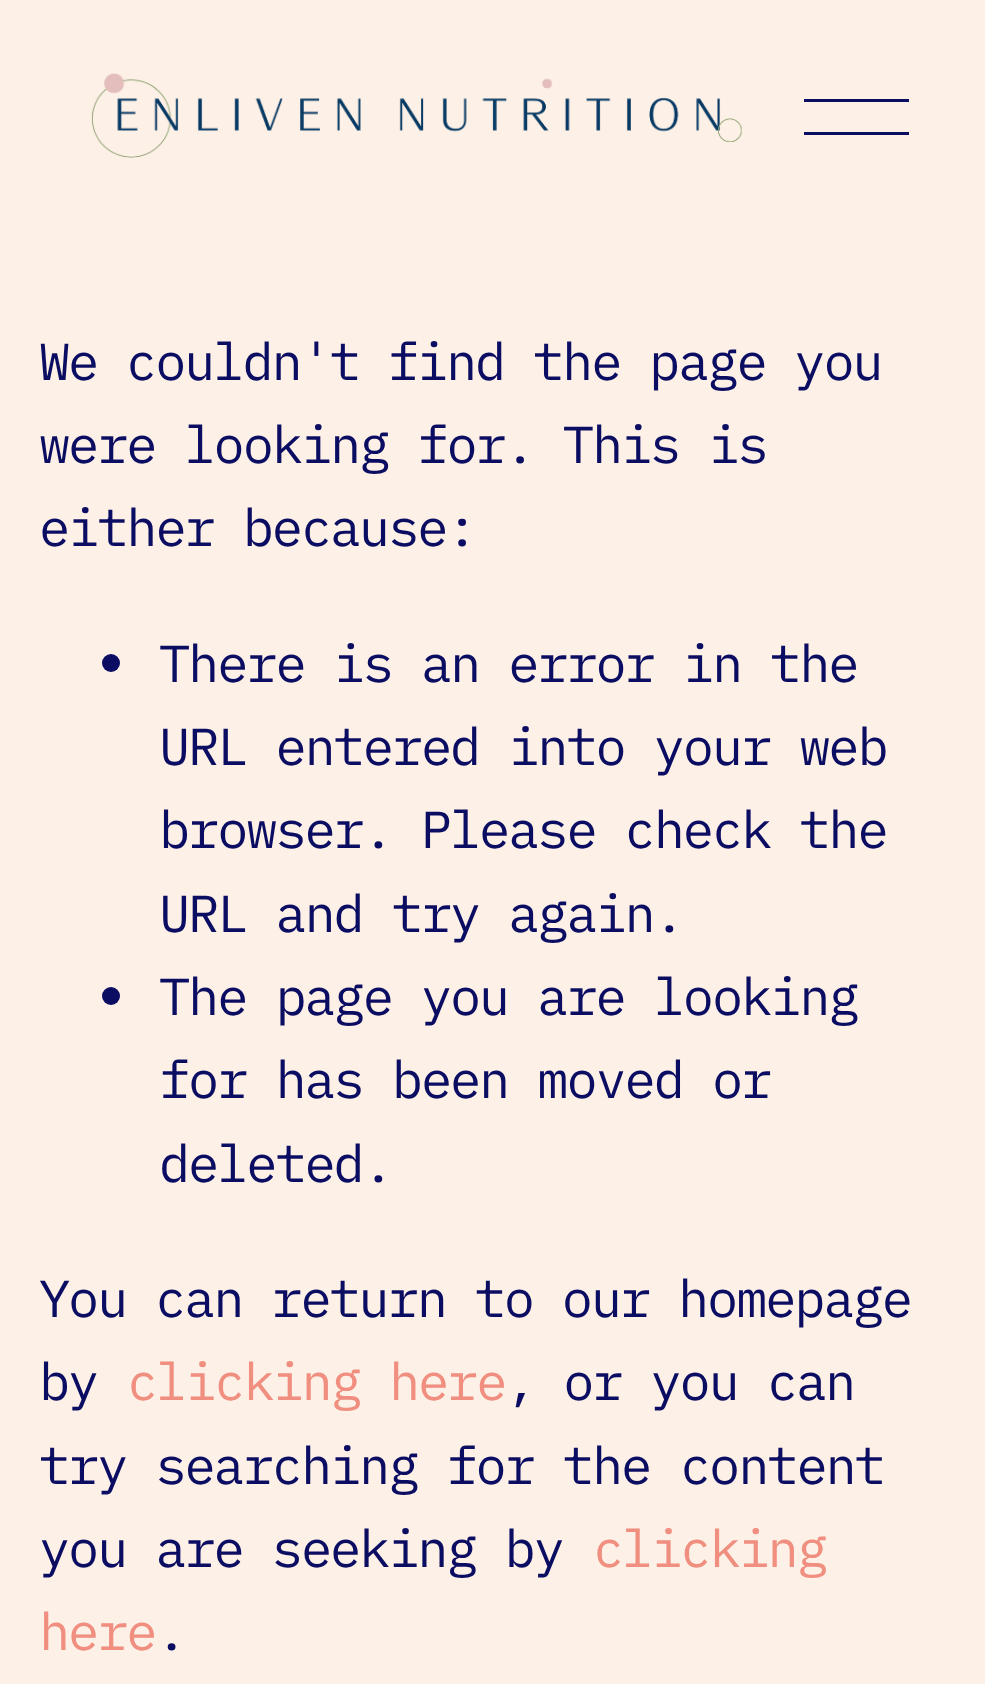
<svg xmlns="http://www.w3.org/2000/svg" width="985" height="1684">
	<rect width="100%" height="100%" fill="#FDF0E6" />
	<image x="91" y="73" width="651" height="85" href="assets/img1.png" />
	<rect x="804" y="99" width="105" height="3" fill="#0B0D63" />
	<rect x="804" y="132" width="105" height="3" fill="#0B0D63" />
	<g font-family="IBM Plex Mono" font-size="52" letter-spacing="-2.1" fill="#0B0D63">
		<text x="39" y="380" word-spacing="-0.25">We couldn't find the page you</text>
		<text x="39" y="463">were looking for. This is</text>
		<text x="39" y="546">either because:</text>
	</g>
	<circle cx="111" cy="663" r="9" fill="#0B0D63" />
	<g font-family="IBM Plex Mono" font-size="52" letter-spacing="-2.1" fill="#0B0D63">
		<text x="159" y="682">There is an error in the</text>
		<text x="159" y="765">URL entered into your web</text>
		<text x="159" y="848">browser. Please check the</text>
		<text x="159" y="932">URL and try again.</text>
	</g>
	<circle cx="111" cy="996" r="9" fill="#0B0D63" />
	<g font-family="IBM Plex Mono" font-size="52" letter-spacing="-2.1" fill="#0B0D63">
		<text x="159" y="1015">The page you are looking</text>
		<text x="159" y="1098">for has been moved or</text>
		<text x="159" y="1182">deleted.</text>
		<text x="39" y="1317" word-spacing="-0.25">You can return to our homepage</text>
		<text x="39" y="1400">by</text>
	</g>
	<text x="127" y="1400" font-family="IBM Plex Mono" font-size="52" letter-spacing="-2.1" fill="#F08E80">clicking here</text>
	<g font-family="IBM Plex Mono" font-size="52" letter-spacing="-2.1" fill="#0B0D63">
		<text x="505" y="1400">, or you can</text>
		<text x="39" y="1484">try searching for the</text>
		<text x="680" y="1484">content</text>
		<text x="39" y="1567">you are seeking by</text>
	</g>
	<g font-family="IBM Plex Mono" font-size="52" letter-spacing="-2.1" fill="#F08E80">
		<text x="593" y="1567">clicking</text>
		<text x="39" y="1650">here</text>
	</g>
	<text x="156" y="1650" font-family="IBM Plex Mono" font-size="52" letter-spacing="-2.1" fill="#0B0D63">.</text>
</svg>
